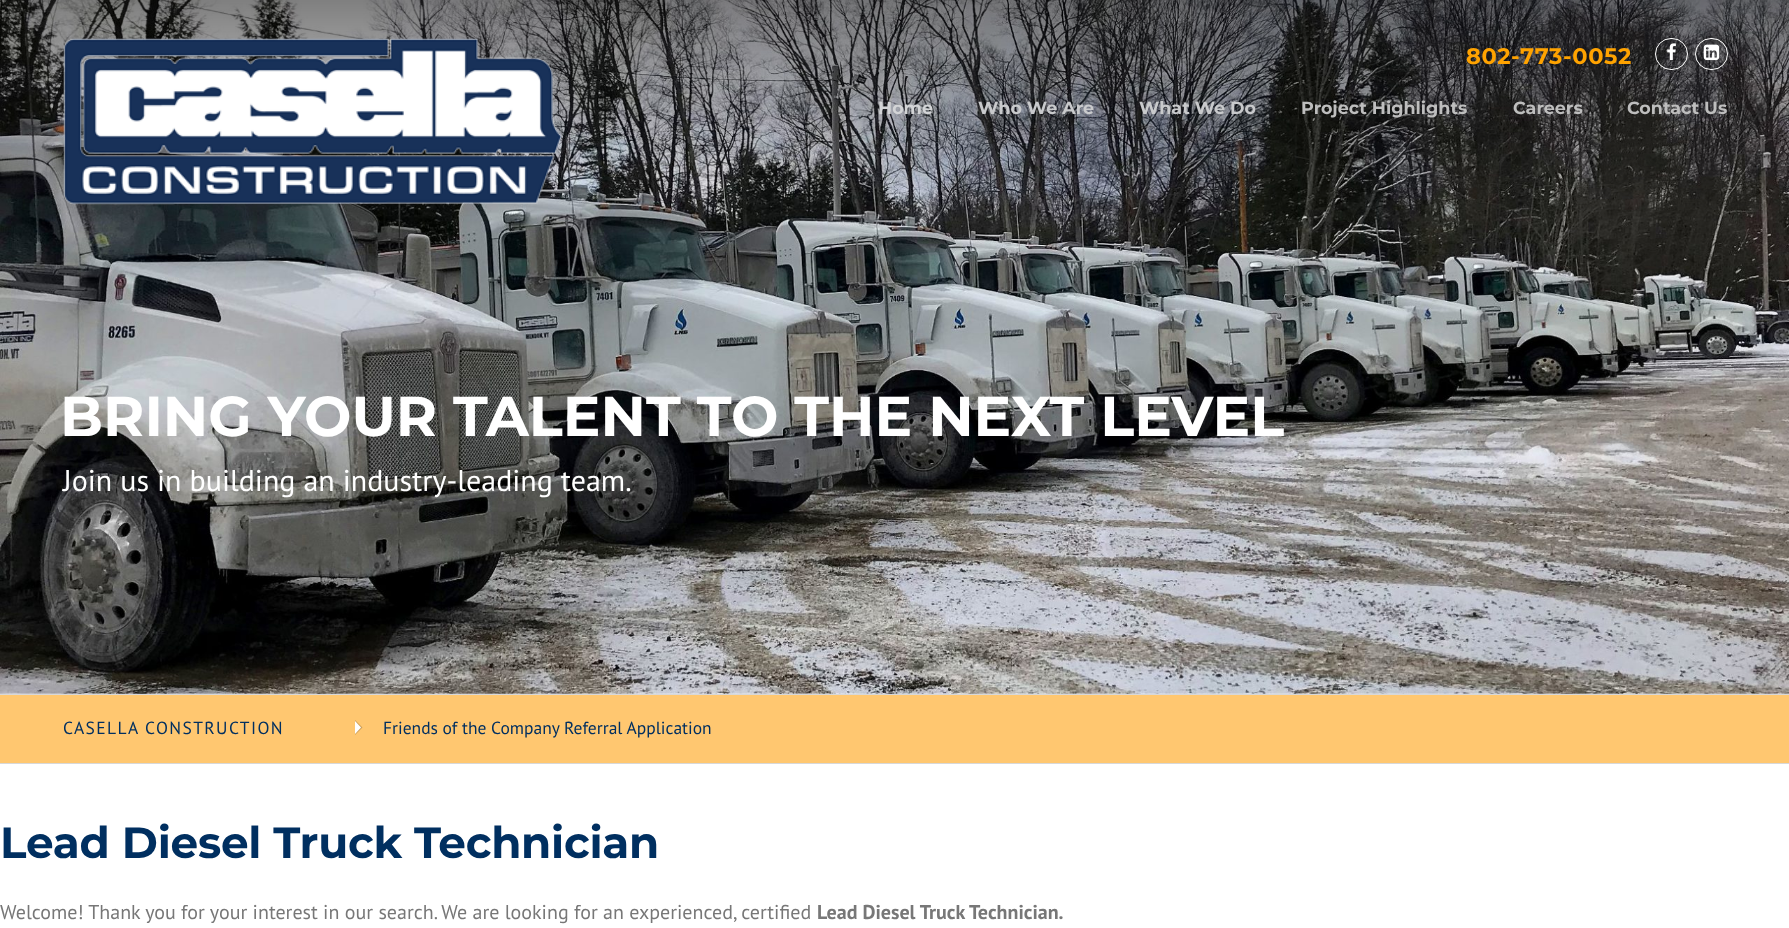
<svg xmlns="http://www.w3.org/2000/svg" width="1789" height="928">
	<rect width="100%" height="100%" fill="#FFFFFF" />
	<image x="0" y="0" width="1789" height="694" href="assets/img4.png" />
	<image x="63" y="38" width="499" height="167" href="assets/img1.png" />
	<text x="1466" y="64" font-family="Montserrat" font-size="22.5" font-weight="700" letter-spacing="0.6" fill="#FFA300">802-773-0052</text>
	<rect x="1655.5" y="38.5" width="32" height="31" rx="15.5" fill="none" stroke="#FFFFFF" />
	<image x="1667" y="43" width="9" height="18" href="assets/img2.png" />
	<rect x="1695.5" y="38.5" width="32" height="31" rx="15.5" fill="none" stroke="#FFFFFF" />
	<image x="1703" y="44" width="17" height="17" href="assets/img3.png" />
	<text x="878" y="114" font-family="Montserrat" font-size="17.5" font-weight="700" fill="#D3D4D6">Home</text>
	<g font-family="Montserrat" font-size="17.5" font-weight="700" fill="#C9CACC">
		<text x="978" y="114">Who We Are</text>
		<text x="1139" y="114">What We Do</text>
	</g>
	<g font-family="Montserrat" font-size="17.5" font-weight="700" fill="#BEBEBE">
		<text x="1301" y="114">Project Highlights</text>
		<text x="1513" y="114">Careers</text>
		<text x="1627" y="114">Contact Us</text>
	</g>
	<rect x="0" y="694" width="1789" height="1" fill="#D8D8D8" />
	<text x="60" y="436" font-family="Montserrat" font-size="56.25" font-weight="700" fill="#FFFFFF">BRING YOUR TALENT TO THE NEXT LEVEL</text>
	<text x="63" y="491" font-family="PT Sans" font-size="30" fill="#FFFFFF">Join us in building an industry-leading team.</text>
	<rect x="0" y="695" width="1789" height="68" fill="#FFC770" />
	<rect x="0" y="763" width="1789" height="1" fill="#D8D8D8" />
	<text x="63" y="734" font-family="PT Sans" font-size="17.5" letter-spacing="1.4" fill="#002F60">CASELLA CONSTRUCTION</text>
	<path d="M355 735V720L362.5 727.5Z" fill="#CC9F5A" />
	<path d="M355 734V721L361 727.5Z" fill="#FFFFFF" />
	<text x="383" y="734" font-family="PT Sans" font-size="17.5" fill="#002F60">Friends of the Company Referral Application</text>
	<text x="0" y="858" font-family="Montserrat" font-size="43.75" font-weight="700" letter-spacing="-0.25" fill="#002F60">Lead Diesel Truck Technician</text>
	<text x="0" y="919" font-family="PT Sans" font-size="20" fill="#777777">Welcome! Thank you for your interest in our search. We are looking for an experienced, certified</text>
	<text x="817" y="919" font-family="PT Sans" font-size="20" font-weight="700" fill="#777777">Lead Diesel Truck Technician.</text>
</svg>
